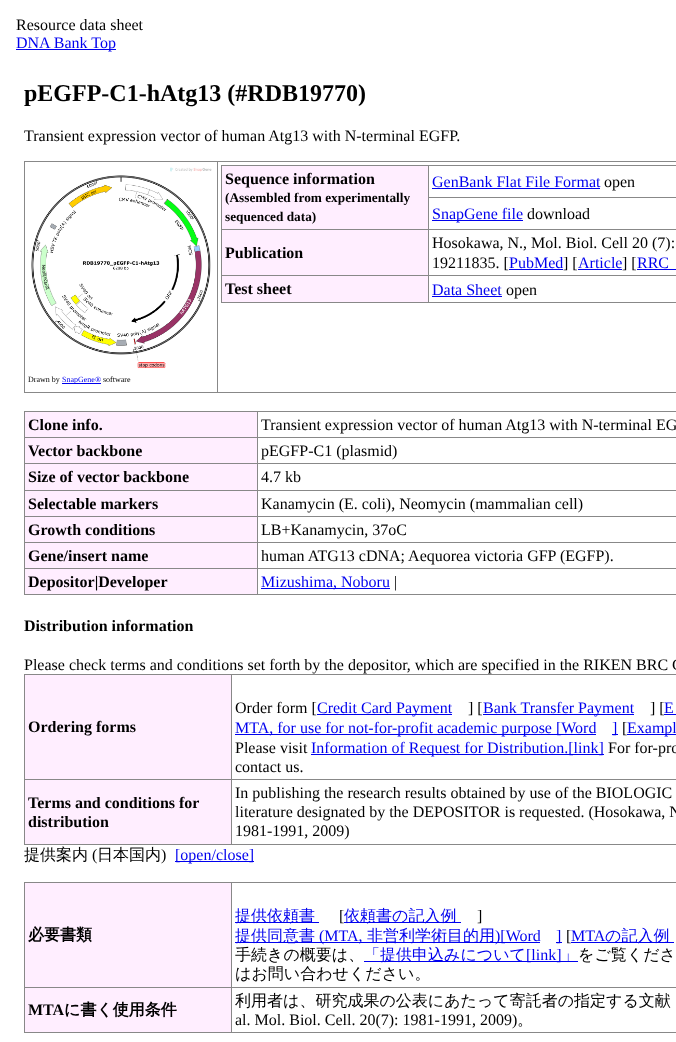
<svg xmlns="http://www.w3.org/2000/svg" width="676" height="1042">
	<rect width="100%" height="100%" fill="#FFFFFF" />
	<text x="16" y="30" font-family="Liberation Serif" font-size="16" fill="#000000">Resource data sheet</text>
	<rect x="16" y="49" width="100" height="1" fill="#0000EE" />
	<text x="16" y="48" font-family="Liberation Serif" font-size="16" fill="#0000EE">DNA Bank Top</text>
	<text x="24" y="101" font-family="Liberation Serif" font-size="24" font-weight="700" fill="#000000">pEGFP-C1-hAtg13 (#RDB19770)</text>
	<text x="24" y="141" font-family="Liberation Serif" font-size="16" fill="#000000">Transient expression vector of human Atg13 with N-terminal EGFP.</text>
	<rect x="24" y="161" width="652" height="1" fill="#888888" />
	<rect x="24" y="392" width="652" height="1" fill="#888888" />
	<rect x="24" y="161" width="1" height="232" fill="#888888" />
	<rect x="217" y="161" width="1" height="232" fill="#888888" />
	<rect x="221" y="165" width="455" height="1" fill="#888888" />
	<rect x="221" y="302" width="455" height="1" fill="#888888" />
	<rect x="221" y="165" width="1" height="138" fill="#888888" />
	<rect x="222" y="166" width="206" height="63" fill="#FFEEFF" />
	<text x="225" y="184" font-family="Liberation Serif" font-size="16" font-weight="700" fill="#000000">Sequence information</text>
	<g font-family="Liberation Serif" font-size="13.3" font-weight="700" fill="#000000">
		<text x="225" y="202">(Assembled from experimentally</text>
		<text x="225" y="221">sequenced data)</text>
	</g>
	<text x="432" y="187" font-family="Liberation Serif" font-size="16" fill="#0000EE">GenBank Flat File Format</text>
	<rect x="432" y="188" width="168" height="1" fill="#0000EE" />
	<text x="604" y="187" font-family="Liberation Serif" font-size="16" fill="#000000">open</text>
	<rect x="428" y="197" width="248" height="1" fill="#888888" />
	<rect x="428" y="229" width="248" height="1" fill="#888888" />
	<rect x="428" y="275" width="248" height="1" fill="#888888" />
	<rect x="428" y="275" width="1" height="28" fill="#888888" />
	<rect x="221" y="275" width="208" height="1" fill="#888888" />
	<rect x="428" y="229" width="1" height="47" fill="#888888" />
	<rect x="221" y="229" width="208" height="1" fill="#888888" />
	<rect x="428" y="165" width="1" height="65" fill="#888888" />
	<rect x="432" y="220" width="91" height="1" fill="#0000EE" />
	<text x="432" y="219" font-family="Liberation Serif" font-size="16" fill="#0000EE">SnapGene file</text>
	<text x="527" y="219" font-family="Liberation Serif" font-size="16" fill="#000000">download</text>
	<rect x="222" y="230" width="206" height="45" fill="#FFEEFF" />
	<text x="225" y="258" font-family="Liberation Serif" font-size="16" font-weight="700" fill="#000000">Publication</text>
	<g font-family="Liberation Serif" font-size="16" fill="#000000">
		<text x="432" y="248">Hosokawa, N., Mol. Biol. Cell 20 (7):</text>
		<text x="432" y="268">19211835. [</text>
	</g>
	<text x="509" y="268" font-family="Liberation Serif" font-size="16" fill="#0000EE">PubMed</text>
	<rect x="509" y="269" width="54" height="1" fill="#0000EE" />
	<text x="563" y="268" font-family="Liberation Serif" font-size="16" fill="#000000">] [</text>
	<text x="578" y="268" font-family="Liberation Serif" font-size="16" fill="#0000EE">Article</text>
	<rect x="578" y="269" width="44" height="1" fill="#0000EE" />
	<text x="622" y="268" font-family="Liberation Serif" font-size="16" fill="#000000">] [</text>
	<text x="637" y="268" font-family="Liberation Serif" font-size="16" fill="#0000EE">RRC</text>
	<rect x="637" y="269" width="39" height="1" fill="#0000EE" />
	<rect x="222" y="276" width="206" height="26" fill="#FFEEFF" />
	<text x="225" y="294" font-family="Liberation Serif" font-size="16" font-weight="700" fill="#000000">Test sheet</text>
	<text x="432" y="295" font-family="Liberation Serif" font-size="16" fill="#0000EE">Data Sheet</text>
	<rect x="432" y="296" width="70" height="1" fill="#0000EE" />
	<text x="506" y="295" font-family="Liberation Serif" font-size="16" fill="#000000">open</text>
	<image x="31" y="167" width="181" height="202" href="assets/img1.png" />
	<text x="28" y="382" font-family="Liberation Serif" font-size="8" fill="#000000">Drawn by</text>
	<rect x="62" y="383" width="39" height="1" fill="#0000EE" />
	<text x="62" y="382" font-family="Liberation Serif" font-size="8" fill="#0000EE">SnapGene®</text>
	<text x="103" y="382" font-family="Liberation Serif" font-size="8" fill="#000000">software</text>
	<rect x="24" y="411" width="652" height="1" fill="#888888" />
	<rect x="24" y="594" width="652" height="1" fill="#888888" />
	<rect x="24" y="411" width="1" height="184" fill="#888888" />
	<rect x="25" y="412" width="232" height="25" fill="#FFEEFF" />
	<text x="28" y="430" font-family="Liberation Serif" font-size="16" font-weight="700" fill="#000000">Clone info.</text>
	<rect x="257" y="437" width="419" height="1" fill="#888888" />
	<rect x="257" y="463" width="419" height="1" fill="#888888" />
	<rect x="257" y="490" width="419" height="1" fill="#888888" />
	<rect x="257" y="516" width="419" height="1" fill="#888888" />
	<rect x="257" y="542" width="419" height="1" fill="#888888" />
	<rect x="257" y="568" width="419" height="1" fill="#888888" />
	<rect x="257" y="568" width="1" height="27" fill="#888888" />
	<rect x="24" y="568" width="234" height="1" fill="#888888" />
	<rect x="257" y="542" width="1" height="27" fill="#888888" />
	<rect x="24" y="542" width="234" height="1" fill="#888888" />
	<rect x="257" y="516" width="1" height="27" fill="#888888" />
	<rect x="24" y="516" width="234" height="1" fill="#888888" />
	<rect x="257" y="490" width="1" height="27" fill="#888888" />
	<rect x="24" y="490" width="234" height="1" fill="#888888" />
	<rect x="257" y="463" width="1" height="28" fill="#888888" />
	<rect x="24" y="463" width="234" height="1" fill="#888888" />
	<rect x="257" y="437" width="1" height="27" fill="#888888" />
	<rect x="24" y="437" width="234" height="1" fill="#888888" />
	<rect x="257" y="411" width="1" height="27" fill="#888888" />
	<text x="261" y="430" font-family="Liberation Serif" font-size="16" fill="#000000">Transient expression vector of human Atg13 with N-terminal EG</text>
	<rect x="25" y="438" width="232" height="25" fill="#FFEEFF" />
	<text x="28" y="456" font-family="Liberation Serif" font-size="16" font-weight="700" fill="#000000">Vector backbone</text>
	<text x="261" y="456" font-family="Liberation Serif" font-size="16" fill="#000000">pEGFP-C1 (plasmid)</text>
	<rect x="25" y="464" width="232" height="26" fill="#FFEEFF" />
	<text x="28" y="482" font-family="Liberation Serif" font-size="16" font-weight="700" fill="#000000">Size of vector backbone</text>
	<text x="261" y="482" font-family="Liberation Serif" font-size="16" fill="#000000">4.7 kb</text>
	<rect x="25" y="491" width="232" height="25" fill="#FFEEFF" />
	<text x="28" y="509" font-family="Liberation Serif" font-size="16" font-weight="700" fill="#000000">Selectable markers</text>
	<text x="261" y="509" font-family="Liberation Serif" font-size="16" fill="#000000">Kanamycin (E. coli), Neomycin (mammalian cell)</text>
	<rect x="25" y="517" width="232" height="25" fill="#FFEEFF" />
	<text x="28" y="535" font-family="Liberation Serif" font-size="16" font-weight="700" fill="#000000">Growth conditions</text>
	<text x="261" y="535" font-family="Liberation Serif" font-size="16" fill="#000000">LB+Kanamycin, 37oC</text>
	<rect x="25" y="543" width="232" height="25" fill="#FFEEFF" />
	<text x="28" y="561" font-family="Liberation Serif" font-size="16" font-weight="700" fill="#000000">Gene/insert name</text>
	<text x="261" y="561" font-family="Liberation Serif" font-size="16" fill="#000000">human ATG13 cDNA; Aequorea victoria GFP (EGFP).</text>
	<rect x="25" y="569" width="232" height="25" fill="#FFEEFF" />
	<text x="28" y="587" font-family="Liberation Serif" font-size="16" font-weight="700" fill="#000000">Depositor|Developer</text>
	<rect x="261" y="588" width="129" height="1" fill="#0000EE" />
	<text x="261" y="587" font-family="Liberation Serif" font-size="16" fill="#0000EE">Mizushima, Noboru</text>
	<text x="394" y="587" font-family="Liberation Serif" font-size="16" fill="#000000">|</text>
	<text x="24" y="631" font-family="Liberation Serif" font-size="16" font-weight="700" fill="#000000">Distribution information</text>
	<text x="24" y="670" font-family="Liberation Serif" font-size="16" fill="#000000">Please check terms and conditions set forth by the depositor, which are specified in the RIKEN BRC C</text>
	<rect x="24" y="674" width="652" height="1" fill="#888888" />
	<rect x="24" y="844" width="652" height="1" fill="#888888" />
	<rect x="24" y="674" width="1" height="171" fill="#888888" />
	<rect x="25" y="675" width="206" height="104" fill="#FFEEFF" />
	<text x="28" y="732" font-family="Liberation Serif" font-size="16" font-weight="700" fill="#000000">Ordering forms</text>
	<rect x="231" y="779" width="445" height="1" fill="#888888" />
	<rect x="231" y="779" width="1" height="66" fill="#888888" />
	<rect x="24" y="779" width="208" height="1" fill="#888888" />
	<rect x="231" y="674" width="1" height="106" fill="#888888" />
	<text x="235" y="713" font-family="Liberation Serif" font-size="16" fill="#000000">Order form [</text>
	<rect x="317" y="714" width="135" height="1" fill="#0000EE" />
	<text x="317" y="713" font-family="Liberation Serif" font-size="16" fill="#0000EE">Credit Card Payment</text>
	<text x="468" y="713" font-family="Liberation Serif" font-size="16" fill="#000000">] [</text>
	<rect x="483" y="714" width="151" height="1" fill="#0000EE" />
	<text x="483" y="713" font-family="Liberation Serif" font-size="16" fill="#0000EE">Bank Transfer Payment</text>
	<text x="650" y="713" font-family="Liberation Serif" font-size="16" fill="#000000">] [</text>
	<text x="664" y="713" font-family="Liberation Serif" font-size="16" fill="#0000EE">E</text>
	<rect x="664" y="714" width="12" height="1" fill="#0000EE" />
	<rect x="235" y="734" width="361" height="1" fill="#0000EE" />
	<text x="235" y="733" font-family="Liberation Serif" font-size="16" fill="#0000EE">MTA, for use for not-for-profit academic purpose [Word</text>
	<rect x="612" y="734" width="6" height="1" fill="#0000EE" />
	<text x="612" y="733" font-family="Liberation Serif" font-size="16" fill="#0000EE">]</text>
	<text x="622" y="733" font-family="Liberation Serif" font-size="16" fill="#000000">[</text>
	<rect x="627" y="734" width="49" height="1" fill="#0000EE" />
	<text x="627" y="733" font-family="Liberation Serif" font-size="16" fill="#0000EE">Exampl</text>
	<text x="235" y="753" font-family="Liberation Serif" font-size="16" fill="#000000">Please visit</text>
	<rect x="311" y="754" width="293" height="1" fill="#0000EE" />
	<text x="311" y="753" font-family="Liberation Serif" font-size="16" fill="#0000EE">Information of Request for Distribution.[link]</text>
	<g font-family="Liberation Serif" font-size="16" fill="#000000">
		<text x="608" y="753">For for-pro</text>
		<text x="235" y="772">contact us.</text>
	</g>
	<rect x="25" y="780" width="206" height="64" fill="#FFEEFF" />
	<g font-family="Liberation Serif" font-size="16" font-weight="700" fill="#000000">
		<text x="28" y="808">Terms and conditions for</text>
		<text x="28" y="827">distribution</text>
	</g>
	<g font-family="Liberation Serif" font-size="16" fill="#000000">
		<text x="235" y="798">In publishing the research results obtained by use of the BIOLOGIC</text>
		<text x="235" y="817">literature designated by the DEPOSITOR is requested. (Hosokawa, N</text>
		<text x="235" y="836">1981-1991, 2009)</text>
	</g>
	<text x="24" y="860" font-family="WenQuanYi Zen Hei" font-size="16" font-weight="500" fill="#000000">提供案内</text>
	<text x="92" y="860" font-family="Liberation Serif" font-size="16" fill="#000000">(</text>
	<text x="97" y="860" font-family="WenQuanYi Zen Hei" font-size="16" font-weight="500" fill="#000000">日本国内</text>
	<text x="161" y="860" font-family="Liberation Serif" font-size="16" fill="#000000">)</text>
	<rect x="175" y="861" width="79" height="1" fill="#0000EE" />
	<text x="175" y="860" font-family="Liberation Serif" font-size="16" fill="#0000EE">[open/close]</text>
	<rect x="24" y="882" width="652" height="1" fill="#888888" />
	<rect x="24" y="1032" width="652" height="1" fill="#888888" />
	<rect x="24" y="882" width="1" height="151" fill="#888888" />
	<rect x="25" y="883" width="206" height="104" fill="#FFEEFF" />
	<text x="28" y="940" font-family="WenQuanYi Zen Hei" font-size="16" font-weight="700" fill="#000000">必要書類</text>
	<rect x="231" y="987" width="445" height="1" fill="#888888" />
	<rect x="231" y="987" width="1" height="46" fill="#888888" />
	<rect x="24" y="987" width="208" height="1" fill="#888888" />
	<rect x="231" y="882" width="1" height="106" fill="#888888" />
	<rect x="235" y="922" width="84" height="1" fill="#0000EE" />
	<text x="235" y="921" font-family="WenQuanYi Zen Hei" font-size="16" font-weight="500" fill="#0000EE">提供依頼書</text>
	<text x="339" y="921" font-family="Liberation Serif" font-size="16" fill="#000000">[</text>
	<rect x="344" y="922" width="117" height="1" fill="#0000EE" />
	<text x="344" y="921" font-family="WenQuanYi Zen Hei" font-size="16" font-weight="500" fill="#0000EE">依頼書の記入例</text>
	<text x="477" y="921" font-family="Liberation Serif" font-size="16" fill="#000000">]</text>
	<rect x="235" y="942" width="305" height="1" fill="#0000EE" />
	<text x="235" y="941" font-family="WenQuanYi Zen Hei" font-size="16" font-weight="500" fill="#0000EE">提供同意書</text>
	<text x="319" y="941" font-family="Liberation Serif" font-size="16" fill="#0000EE">(MTA,</text>
	<text x="367" y="941" font-family="WenQuanYi Zen Hei" font-size="16" font-weight="500" fill="#0000EE">非営利学術目的用</text>
	<text x="495" y="941" font-family="Liberation Serif" font-size="16" fill="#0000EE">)[Word</text>
	<rect x="556" y="942" width="6" height="1" fill="#0000EE" />
	<text x="556" y="941" font-family="Liberation Serif" font-size="16" fill="#0000EE">]</text>
	<text x="566" y="941" font-family="Liberation Serif" font-size="16" fill="#000000">[</text>
	<text x="571" y="941" font-family="Liberation Serif" font-size="16" fill="#0000EE">MTA</text>
	<rect x="571" y="942" width="103" height="1" fill="#0000EE" />
	<text x="605" y="941" font-family="WenQuanYi Zen Hei" font-size="16" font-weight="500" fill="#0000EE">の記入例</text>
	<text x="235" y="960" font-family="WenQuanYi Zen Hei" font-size="16" font-weight="500" fill="#000000">手続きの概要は、</text>
	<rect x="364" y="961" width="214" height="1" fill="#0000EE" />
	<text x="364" y="960" font-family="WenQuanYi Zen Hei" font-size="16" font-weight="500" fill="#0000EE">「提供申込みについて</text>
	<text x="526" y="960" font-family="Liberation Serif" font-size="16" fill="#0000EE">[link]</text>
	<text x="562" y="960" font-family="WenQuanYi Zen Hei" font-size="16" font-weight="500" fill="#0000EE">」</text>
	<g font-family="WenQuanYi Zen Hei" font-size="16" font-weight="500" fill="#000000">
		<text x="578" y="960">をご覧くださ</text>
		<text x="235" y="979">はお問い合わせください。</text>
	</g>
	<rect x="25" y="988" width="206" height="44" fill="#FFEEFF" />
	<text x="28" y="1015" font-family="Liberation Serif" font-size="16" font-weight="700" fill="#000000">MTA</text>
	<text x="64" y="1015" font-family="WenQuanYi Zen Hei" font-size="16" font-weight="700" fill="#000000">に書く使用条件</text>
	<text x="235" y="1006" font-family="WenQuanYi Zen Hei" font-size="16" font-weight="500" fill="#000000">利用者は、研究成果の公表にあたって寄託者の指定する文献</text>
	<text x="235" y="1025" font-family="Liberation Serif" font-size="16" fill="#000000">al. Mol. Biol. Cell. 20(7): 1981-1991, 2009)</text>
	<text x="517" y="1025" font-family="WenQuanYi Zen Hei" font-size="16" font-weight="500" fill="#000000">。</text>
</svg>
